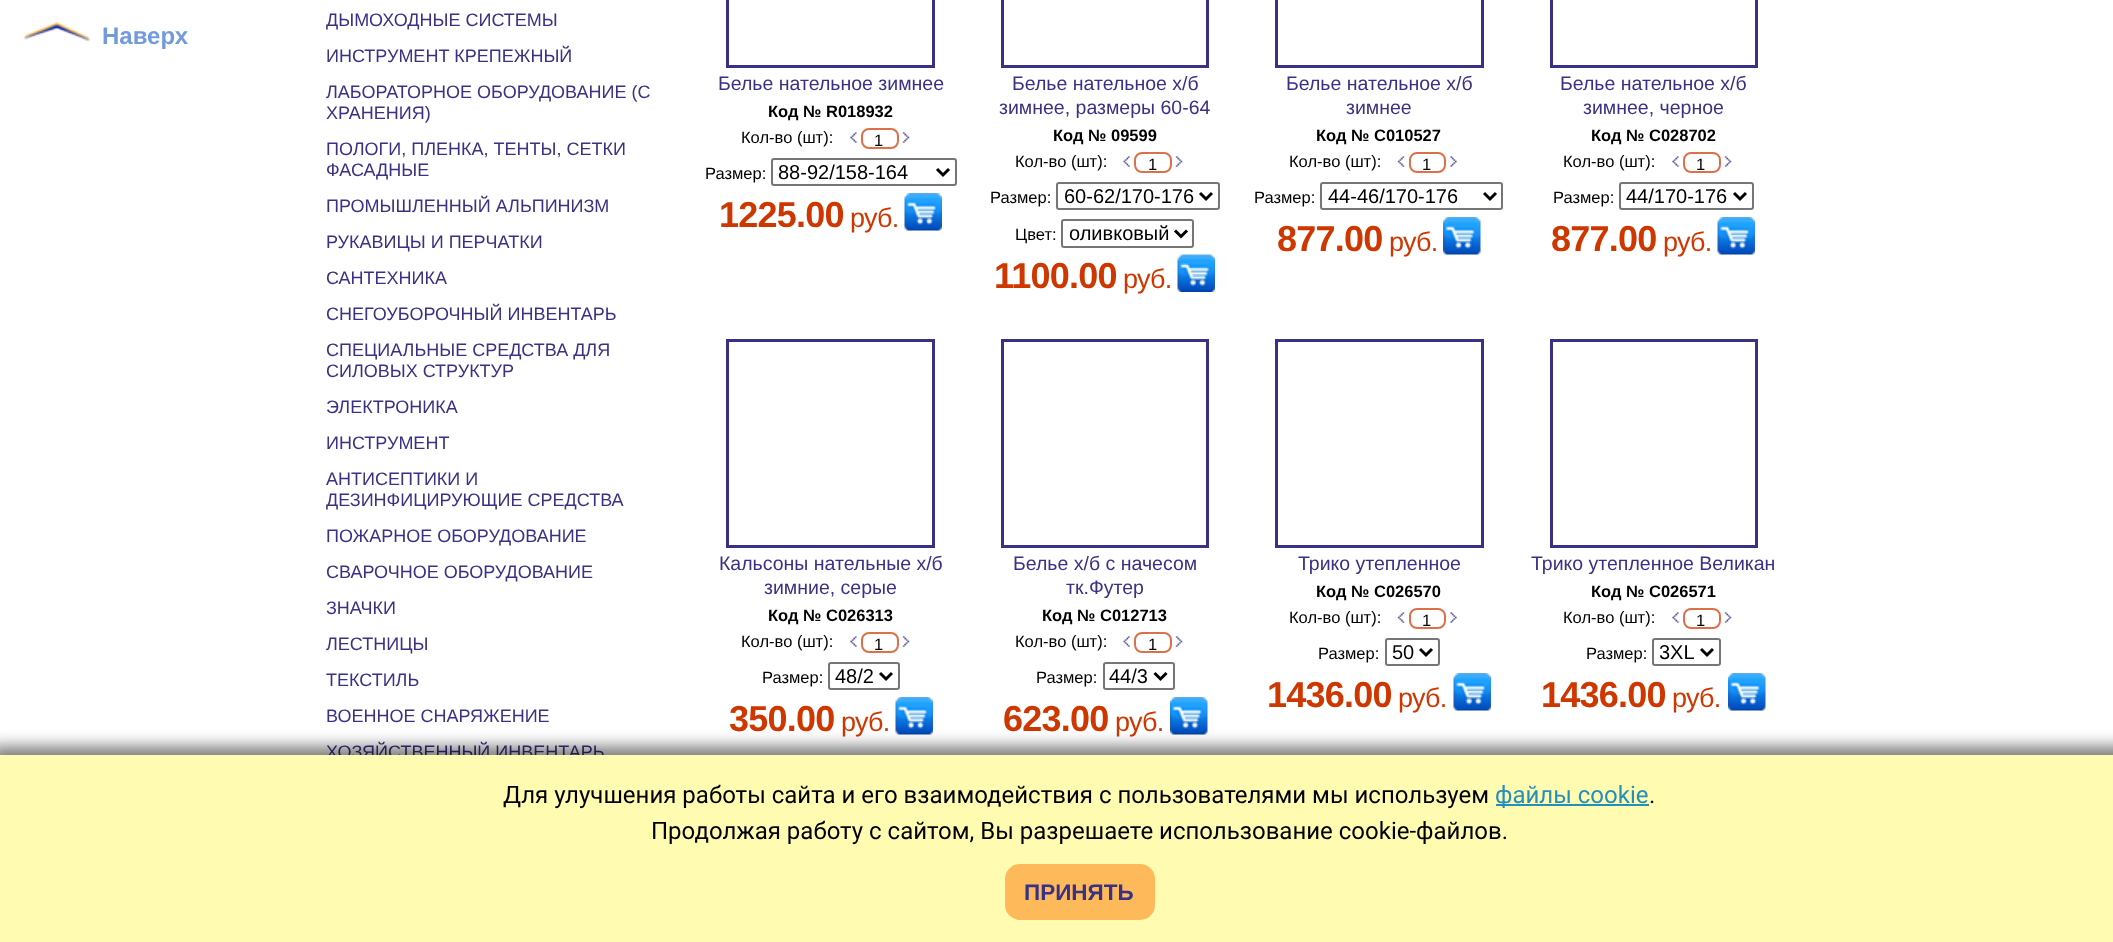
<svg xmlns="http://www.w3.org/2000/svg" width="2113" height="942">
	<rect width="100%" height="100%" fill="#FFFFFF" />
	<image x="23" y="21" width="68" height="21" href="assets/img1.png" />
	<text x="102" y="44" font-family="Liberation Sans" font-size="24" font-weight="700" fill="#729BDD">Наверх</text>
	<g font-family="Liberation Sans" font-size="18" fill="#393185">
		<text x="326" y="26">ДЫМОХОДНЫЕ СИСТЕМЫ</text>
		<text x="326" y="62">ИНСТРУМЕНТ КРЕПЕЖНЫЙ</text>
		<text x="326" y="98">ЛАБОРАТОРНОЕ ОБОРУДОВАНИЕ (С</text>
		<text x="326" y="119">ХРАНЕНИЯ)</text>
		<text x="326" y="155">ПОЛОГИ, ПЛЕНКА, ТЕНТЫ, СЕТКИ</text>
		<text x="326" y="176">ФАСАДНЫЕ</text>
		<text x="326" y="212">ПРОМЫШЛЕННЫЙ АЛЬПИНИЗМ</text>
		<text x="326" y="248">РУКАВИЦЫ И ПЕРЧАТКИ</text>
		<text x="326" y="284">САНТЕХНИКА</text>
		<text x="326" y="320">СНЕГОУБОРОЧНЫЙ ИНВЕНТАРЬ</text>
		<text x="326" y="356">СПЕЦИАЛЬНЫЕ СРЕДСТВА ДЛЯ</text>
		<text x="326" y="377">СИЛОВЫХ СТРУКТУР</text>
		<text x="326" y="413">ЭЛЕКТРОНИКА</text>
		<text x="326" y="449">ИНСТРУМЕНТ</text>
		<text x="326" y="485">АНТИСЕПТИКИ И</text>
		<text x="326" y="506">ДЕЗИНФИЦИРУЮЩИЕ СРЕДСТВА</text>
		<text x="326" y="542">ПОЖАРНОЕ ОБОРУДОВАНИЕ</text>
		<text x="326" y="578">СВАРОЧНОЕ ОБОРУДОВАНИЕ</text>
		<text x="326" y="614">ЗНАЧКИ</text>
		<text x="326" y="650">ЛЕСТНИЦЫ</text>
		<text x="326" y="686">ТЕКСТИЛЬ</text>
		<text x="326" y="722">ВОЕННОЕ СНАРЯЖЕНИЕ</text>
		<text x="326" y="758">ХОЗЯЙСТВЕННЫЙ ИНВЕНТАРЬ</text>
	</g>
	<rect x="727.5" y="-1.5" width="206" height="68" fill="none" stroke="#393185" stroke-width="3" />
	<text x="718" y="90" font-family="Liberation Sans" font-size="19.5" fill="#393185">Белье нательное зимнее</text>
	<text x="768" y="117" font-family="Liberation Sans" font-size="16.5" font-weight="700" fill="#000000">Код № R018932</text>
	<text x="741" y="143" font-family="Liberation Sans" font-size="16.5" fill="#000000">Кол-во (шт):</text>
	<image x="850" y="132" width="7" height="11" href="assets/img2.png" />
	<rect x="862" y="129" width="36" height="19" rx="7" fill="none" stroke="#DD7049" stroke-width="2" />
	<text x="874" y="146" font-family="Liberation Sans" font-size="16.5" fill="#000000">1</text>
	<image x="902" y="132" width="8" height="11" href="assets/img3.png" />
	<text x="705" y="179" font-family="Liberation Sans" font-size="16.5" fill="#000000">Размер:</text>
	<rect x="772" y="159" width="184" height="26" rx="2" fill="none" stroke="#767676" stroke-width="2" />
	<path d="M937 169L943 175L949 169" fill="none" stroke="#000000" stroke-width="3" />
	<text x="778" y="179" font-family="Liberation Sans" font-size="20" fill="#000000">88-92/158-164</text>
	<text x="719" y="227" font-family="Liberation Sans" font-size="36" font-weight="700" letter-spacing="-0.75" fill="#CF3700">1225.00</text>
	<text x="850" y="227" font-family="Liberation Sans" font-size="27" letter-spacing="-0.75" fill="#CF3700">руб.</text>
	<image x="904" y="193" width="38" height="38" href="assets/img4.png" />
	<rect x="1002.5" y="-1.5" width="205" height="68" fill="none" stroke="#393185" stroke-width="3" />
	<g font-family="Liberation Sans" font-size="19.5" fill="#393185">
		<text x="1012" y="90">Белье нательное х/б</text>
		<text x="999" y="114">зимнее, размеры 60-64</text>
	</g>
	<text x="1053" y="141" font-family="Liberation Sans" font-size="16.5" font-weight="700" fill="#000000">Код № 09599</text>
	<text x="1015" y="167" font-family="Liberation Sans" font-size="16.5" fill="#000000">Кол-во (шт):</text>
	<image x="1123" y="156" width="7" height="11" href="assets/img5.png" />
	<rect x="1135" y="153" width="36" height="19" rx="7" fill="none" stroke="#DD7049" stroke-width="2" />
	<text x="1148" y="170" font-family="Liberation Sans" font-size="16.5" fill="#000000">1</text>
	<image x="1175" y="156" width="8" height="11" href="assets/img6.png" />
	<text x="990" y="203" font-family="Liberation Sans" font-size="16.5" fill="#000000">Размер:</text>
	<rect x="1057" y="183" width="162" height="26" rx="2" fill="none" stroke="#767676" stroke-width="2" />
	<path d="M1200 193L1206 199L1212 193" fill="none" stroke="#000000" stroke-width="3" />
	<text x="1064" y="203" font-family="Liberation Sans" font-size="20" fill="#000000">60-62/170-176</text>
	<text x="1015" y="240" font-family="Liberation Sans" font-size="16.5" fill="#000000">Цвет:</text>
	<rect x="1062" y="220" width="131" height="27" rx="2" fill="none" stroke="#767676" stroke-width="2" />
	<path d="M1175 230.5L1181 236.5L1187 230.5" fill="none" stroke="#000000" stroke-width="3" />
	<text x="1069" y="240" font-family="Liberation Sans" font-size="20" fill="#000000">оливковый</text>
	<text x="994" y="288" font-family="Liberation Sans" font-size="36" font-weight="700" letter-spacing="-0.75" fill="#CF3700">1100.00</text>
	<text x="1123" y="288" font-family="Liberation Sans" font-size="27" letter-spacing="-0.75" fill="#CF3700">руб.</text>
	<image x="1177" y="254" width="38" height="38" href="assets/img7.png" />
	<rect x="1276.5" y="-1.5" width="206" height="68" fill="none" stroke="#393185" stroke-width="3" />
	<g font-family="Liberation Sans" font-size="19.5" fill="#393185">
		<text x="1286" y="90">Белье нательное х/б</text>
		<text x="1346" y="114">зимнее</text>
	</g>
	<text x="1316" y="141" font-family="Liberation Sans" font-size="16.5" font-weight="700" fill="#000000">Код № C010527</text>
	<text x="1289" y="167" font-family="Liberation Sans" font-size="16.5" fill="#000000">Кол-во (шт):</text>
	<image x="1397" y="156" width="8" height="11" href="assets/img8.png" />
	<rect x="1410" y="153" width="35" height="19" rx="7" fill="none" stroke="#DD7049" stroke-width="2" />
	<text x="1422" y="170" font-family="Liberation Sans" font-size="16.5" fill="#000000">1</text>
	<image x="1450" y="156" width="7" height="11" href="assets/img9.png" />
	<text x="1254" y="203" font-family="Liberation Sans" font-size="16.5" fill="#000000">Размер:</text>
	<rect x="1321" y="183" width="181" height="26" rx="2" fill="none" stroke="#767676" stroke-width="2" />
	<path d="M1484 193L1490 199L1496 193" fill="none" stroke="#000000" stroke-width="3" />
	<text x="1328" y="203" font-family="Liberation Sans" font-size="20" fill="#000000">44-46/170-176</text>
	<text x="1277" y="251" font-family="Liberation Sans" font-size="36" font-weight="700" letter-spacing="-0.75" fill="#CF3700">877.00</text>
	<text x="1389" y="251" font-family="Liberation Sans" font-size="27" letter-spacing="-0.75" fill="#CF3700">руб.</text>
	<image x="1443" y="217" width="38" height="38" href="assets/img10.png" />
	<rect x="1551.5" y="-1.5" width="205" height="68" fill="none" stroke="#393185" stroke-width="3" />
	<g font-family="Liberation Sans" font-size="19.5" fill="#393185">
		<text x="1560" y="90">Белье нательное х/б</text>
		<text x="1583" y="114">зимнее, черное</text>
	</g>
	<text x="1591" y="141" font-family="Liberation Sans" font-size="16.5" font-weight="700" fill="#000000">Код № C028702</text>
	<text x="1563" y="167" font-family="Liberation Sans" font-size="16.5" fill="#000000">Кол-во (шт):</text>
	<image x="1672" y="156" width="7" height="11" href="assets/img2.png" />
	<rect x="1684" y="153" width="36" height="19" rx="7" fill="none" stroke="#DD7049" stroke-width="2" />
	<text x="1696" y="170" font-family="Liberation Sans" font-size="16.5" fill="#000000">1</text>
	<image x="1724" y="156" width="8" height="11" href="assets/img3.png" />
	<text x="1553" y="203" font-family="Liberation Sans" font-size="16.5" fill="#000000">Размер:</text>
	<rect x="1620" y="183" width="133" height="26" rx="2" fill="none" stroke="#767676" stroke-width="2" />
	<path d="M1734 193L1740 199L1746 193" fill="none" stroke="#000000" stroke-width="3" />
	<text x="1626" y="203" font-family="Liberation Sans" font-size="20" fill="#000000">44/170-176</text>
	<text x="1551" y="251" font-family="Liberation Sans" font-size="36" font-weight="700" letter-spacing="-0.75" fill="#CF3700">877.00</text>
	<text x="1663" y="251" font-family="Liberation Sans" font-size="27" letter-spacing="-0.75" fill="#CF3700">руб.</text>
	<image x="1717" y="217" width="38" height="38" href="assets/img4.png" />
	<rect x="727.5" y="340.5" width="206" height="206" fill="none" stroke="#393185" stroke-width="3" />
	<g font-family="Liberation Sans" font-size="19.5" fill="#393185">
		<text x="719" y="570">Кальсоны нательные х/б</text>
		<text x="764" y="594">зимние, серые</text>
	</g>
	<text x="768" y="621" font-family="Liberation Sans" font-size="16.5" font-weight="700" fill="#000000">Код № C026313</text>
	<text x="741" y="647" font-family="Liberation Sans" font-size="16.5" fill="#000000">Кол-во (шт):</text>
	<image x="850" y="636" width="7" height="11" href="assets/img2.png" />
	<rect x="862" y="633" width="36" height="19" rx="7" fill="none" stroke="#DD7049" stroke-width="2" />
	<text x="874" y="650" font-family="Liberation Sans" font-size="16.5" fill="#000000">1</text>
	<image x="902" y="636" width="8" height="11" href="assets/img3.png" />
	<text x="762" y="683" font-family="Liberation Sans" font-size="16.5" fill="#000000">Размер:</text>
	<rect x="829" y="663" width="70" height="26" rx="2" fill="none" stroke="#767676" stroke-width="2" />
	<path d="M880 673L886 679L892 673" fill="none" stroke="#000000" stroke-width="3" />
	<text x="835" y="683" font-family="Liberation Sans" font-size="20" fill="#000000">48/2</text>
	<text x="729" y="731" font-family="Liberation Sans" font-size="36" font-weight="700" letter-spacing="-0.75" fill="#CF3700">350.00</text>
	<text x="841" y="731" font-family="Liberation Sans" font-size="27" letter-spacing="-0.75" fill="#CF3700">руб.</text>
	<image x="895" y="697" width="38" height="38" href="assets/img4.png" />
	<rect x="1002.5" y="340.5" width="205" height="206" fill="none" stroke="#393185" stroke-width="3" />
	<g font-family="Liberation Sans" font-size="19.5" fill="#393185">
		<text x="1013" y="570">Белье х/б с начесом</text>
		<text x="1066" y="594">тк.Футер</text>
	</g>
	<text x="1042" y="621" font-family="Liberation Sans" font-size="16.5" font-weight="700" fill="#000000">Код № C012713</text>
	<text x="1015" y="647" font-family="Liberation Sans" font-size="16.5" fill="#000000">Кол-во (шт):</text>
	<image x="1123" y="636" width="7" height="11" href="assets/img5.png" />
	<rect x="1135" y="633" width="36" height="19" rx="7" fill="none" stroke="#DD7049" stroke-width="2" />
	<text x="1148" y="650" font-family="Liberation Sans" font-size="16.5" fill="#000000">1</text>
	<image x="1175" y="636" width="8" height="11" href="assets/img6.png" />
	<text x="1036" y="683" font-family="Liberation Sans" font-size="16.5" fill="#000000">Размер:</text>
	<rect x="1104" y="663" width="70" height="26" rx="2" fill="none" stroke="#767676" stroke-width="2" />
	<path d="M1154.5 673L1160.5 679L1166.5 673" fill="none" stroke="#000000" stroke-width="3" />
	<text x="1109" y="683" font-family="Liberation Sans" font-size="20" fill="#000000">44/3</text>
	<text x="1003" y="731" font-family="Liberation Sans" font-size="36" font-weight="700" letter-spacing="-0.75" fill="#CF3700">623.00</text>
	<text x="1115" y="731" font-family="Liberation Sans" font-size="27" letter-spacing="-0.75" fill="#CF3700">руб.</text>
	<image x="1170" y="697" width="38" height="38" href="assets/img11.png" />
	<rect x="1276.5" y="340.5" width="206" height="206" fill="none" stroke="#393185" stroke-width="3" />
	<text x="1298" y="570" font-family="Liberation Sans" font-size="19.5" fill="#393185">Трико утепленное</text>
	<text x="1316" y="597" font-family="Liberation Sans" font-size="16.5" font-weight="700" fill="#000000">Код № C026570</text>
	<text x="1289" y="623" font-family="Liberation Sans" font-size="16.5" fill="#000000">Кол-во (шт):</text>
	<image x="1397" y="612" width="8" height="11" href="assets/img8.png" />
	<rect x="1410" y="609" width="35" height="19" rx="7" fill="none" stroke="#DD7049" stroke-width="2" />
	<text x="1422" y="626" font-family="Liberation Sans" font-size="16.5" fill="#000000">1</text>
	<image x="1450" y="612" width="7" height="11" href="assets/img9.png" />
	<text x="1318" y="659" font-family="Liberation Sans" font-size="16.5" fill="#000000">Размер:</text>
	<rect x="1386" y="639" width="53" height="26" rx="2" fill="none" stroke="#767676" stroke-width="2" />
	<path d="M1420 649L1426 655L1432 649" fill="none" stroke="#000000" stroke-width="3" />
	<text x="1392" y="659" font-family="Liberation Sans" font-size="20" fill="#000000">50</text>
	<text x="1267" y="707" font-family="Liberation Sans" font-size="36" font-weight="700" letter-spacing="-0.75" fill="#CF3700">1436.00</text>
	<text x="1398" y="707" font-family="Liberation Sans" font-size="27" letter-spacing="-0.75" fill="#CF3700">руб.</text>
	<image x="1453" y="673" width="38" height="38" href="assets/img12.png" />
	<rect x="1551.5" y="340.5" width="205" height="206" fill="none" stroke="#393185" stroke-width="3" />
	<text x="1531" y="570" font-family="Liberation Sans" font-size="19.5" fill="#393185">Трико утепленное Великан</text>
	<text x="1591" y="597" font-family="Liberation Sans" font-size="16.5" font-weight="700" fill="#000000">Код № C026571</text>
	<text x="1563" y="623" font-family="Liberation Sans" font-size="16.5" fill="#000000">Кол-во (шт):</text>
	<image x="1672" y="612" width="7" height="11" href="assets/img2.png" />
	<rect x="1684" y="609" width="36" height="19" rx="7" fill="none" stroke="#DD7049" stroke-width="2" />
	<text x="1696" y="626" font-family="Liberation Sans" font-size="16.5" fill="#000000">1</text>
	<image x="1724" y="612" width="8" height="11" href="assets/img3.png" />
	<text x="1586" y="659" font-family="Liberation Sans" font-size="16.5" fill="#000000">Размер:</text>
	<rect x="1653" y="639" width="67" height="26" rx="2" fill="none" stroke="#767676" stroke-width="2" />
	<path d="M1701 649L1707 655L1713 649" fill="none" stroke="#000000" stroke-width="3" />
	<text x="1659" y="659" font-family="Liberation Sans" font-size="20" fill="#000000">3XL</text>
	<text x="1541" y="707" font-family="Liberation Sans" font-size="36" font-weight="700" letter-spacing="-0.75" fill="#CF3700">1436.00</text>
	<text x="1672" y="707" font-family="Liberation Sans" font-size="27" letter-spacing="-0.75" fill="#CF3700">руб.</text>
	<image x="1728" y="673" width="38" height="38" href="assets/img10.png" />
	<rect x="-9" y="746" width="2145" height="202" fill="#000000" fill-opacity="0.5" filter="blur(7.5px)" />
	<rect x="0" y="755" width="2113" height="187" fill="#FFFCB2" />
	<text x="503" y="803" font-family="Roboto" font-size="24" fill="#000000">Для улучшения работы сайта и его взаимодействия с пользователями мы используем</text>
	<rect x="1496" y="804" width="153" height="2" fill="#238FBC" />
	<text x="1495" y="803" font-family="Roboto" font-size="24" fill="#238FBC">файлы cookie</text>
	<g font-family="Roboto" font-size="24" fill="#000000">
		<text x="1649" y="803">.</text>
		<text x="651" y="839">Продолжая работу с сайтом, Вы разрешаете использование cookie-файлов.</text>
	</g>
	<rect x="1005" y="864" width="150" height="56" rx="15" fill="#FEBA5A" />
	<text x="1024" y="900" font-family="Liberation Sans" font-size="22.5" font-weight="700" fill="#393185">ПРИНЯТЬ</text>
</svg>
